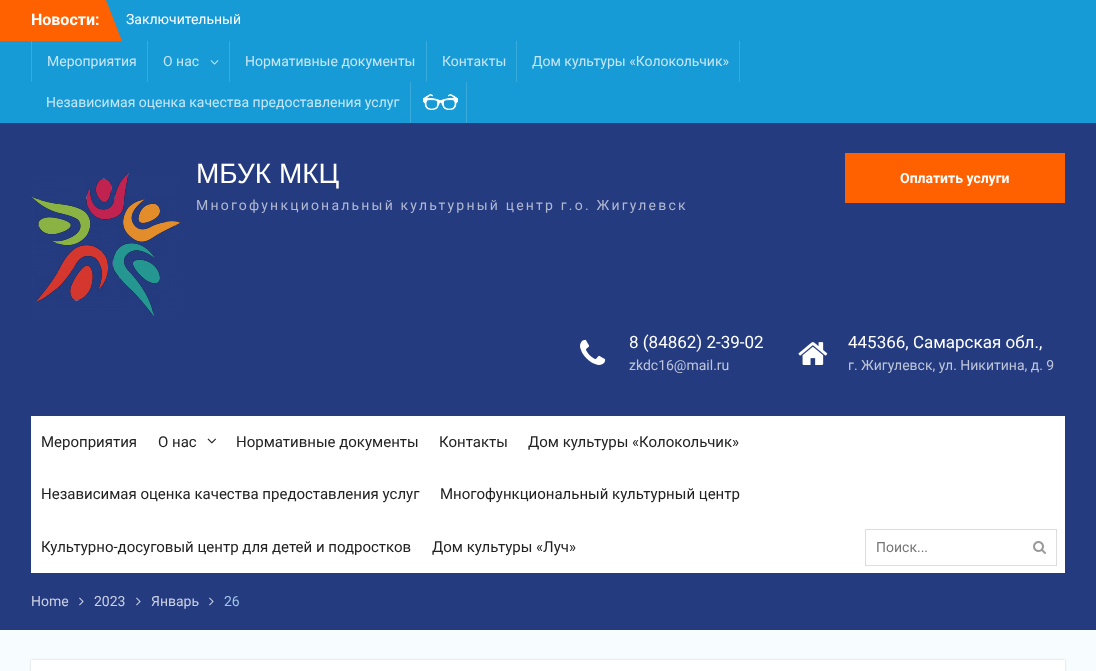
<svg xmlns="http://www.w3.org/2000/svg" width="1096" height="671">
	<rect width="100%" height="100%" fill="#F7FCFE" />
	<rect x="0" y="0" width="1096" height="123" fill="#179BD7" />
	<rect x="0" y="0" width="106" height="41" fill="#FF6000" />
	<text x="31" y="25" font-family="Roboto" font-size="16" font-weight="700" fill="#FFFFFF">Новости:</text>
	<path d="M106 41V0L122 41Z" fill="#FF6000" />
	<text x="126" y="24" font-family="Roboto" font-size="14" fill="#FFFFFF">Заключительный</text>
	<rect x="147" y="41" width="1" height="41" fill="#3AAADD" />
	<rect x="31" y="41" width="1" height="41" fill="#3AAADD" />
	<text x="47" y="66" font-family="Roboto" font-size="14" fill="#C5E6F5">Мероприятия</text>
	<rect x="229" y="41" width="1" height="41" fill="#3AAADD" />
	<text x="163" y="66" font-family="Roboto" font-size="14" fill="#C5E6F5">О нас</text>
	<image x="210" y="60" width="9" height="5" href="assets/img1.png" />
	<rect x="426" y="41" width="1" height="41" fill="#3AAADD" />
	<text x="245" y="66" font-family="Roboto" font-size="14" fill="#C5E6F5">Нормативные документы</text>
	<rect x="516" y="41" width="1" height="41" fill="#3AAADD" />
	<text x="442" y="66" font-family="Roboto" font-size="14" fill="#C5E6F5">Контакты</text>
	<rect x="739" y="41" width="1" height="41" fill="#3AAADD" />
	<text x="532" y="66" font-family="Roboto" font-size="14" fill="#C5E6F5">Дом культуры «Колокольчик»</text>
	<rect x="410" y="82" width="1" height="41" fill="#3AAADD" />
	<text x="46" y="107" font-family="Roboto" font-size="14" fill="#C5E6F5">Независимая оценка качества предоставления услуг</text>
	<rect x="466" y="82" width="1" height="41" fill="#3AAADD" />
	<image x="423" y="94" width="35" height="16" href="assets/img2.png" />
	<rect x="0" y="123" width="1096" height="507" fill="#253B80" />
	<image x="31" y="173" width="150" height="143" href="assets/img3.png" />
	<text x="196" y="183" font-family="Liberation Sans" font-size="28" fill="#FFFFFF">МБУК МКЦ</text>
	<text x="196" y="210" font-family="Roboto" font-size="14" letter-spacing="2.2" fill="#B1B8D1">Многофункциональный культурный центр г.о. Жигулевск</text>
	<rect x="845" y="153" width="220" height="50" fill="#FF6000" />
	<text x="900" y="183" font-family="Roboto" font-size="14" font-weight="700" fill="#FFFFFF">Оплатить услуги</text>
	<image x="580" y="339" width="26" height="26" href="assets/img4.png" />
	<text x="629" y="348" font-family="Roboto" font-size="17" fill="#FFFFFF">8 (84862) 2-39-02</text>
	<text x="629" y="370" font-family="Roboto" font-size="14" fill="#BEC4D9">zkdc16@mail.ru</text>
	<image x="798" y="342" width="30" height="23" href="assets/img5.png" />
	<text x="848" y="348" font-family="Roboto" font-size="17" fill="#FFFFFF">445366, Самарская обл.,</text>
	<text x="848" y="370" font-family="Roboto" font-size="14" fill="#BEC4D9">г. Жигулевск, ул. Никитина, д. 9</text>
	<rect x="31" y="416" width="1034" height="157" fill="#FFFFFF" />
	<g font-family="Roboto" font-size="15" fill="#222222">
		<text x="41" y="447">Мероприятия</text>
		<text x="158" y="447">О нас</text>
	</g>
	<image x="207" y="438" width="9" height="6" href="assets/img6.png" />
	<g font-family="Roboto" font-size="15" fill="#222222">
		<text x="236" y="447">Нормативные документы</text>
		<text x="439" y="447">Контакты</text>
		<text x="528" y="447">Дом культуры «Колокольчик»</text>
		<text x="41" y="499">Независимая оценка качества предоставления услуг</text>
		<text x="440" y="499">Многофункциональный культурный центр</text>
		<text x="41" y="552">Культурно-досуговый центр для детей и подростков</text>
		<text x="432" y="552">Дом культуры «Луч»</text>
	</g>
	<rect x="865.5" y="529.5" width="191" height="36" fill="none" stroke="#DDDDDD" />
	<text x="876" y="552" font-family="Roboto" font-size="14" fill="#757575">Поиск...</text>
	<image x="1033" y="541" width="13" height="13" href="assets/img7.png" />
	<text x="31" y="606" font-family="Roboto" font-size="14" fill="#CBD0E1">Home</text>
	<image x="79" y="597" width="5" height="9" href="assets/img8.png" />
	<text x="94" y="606" font-family="Roboto" font-size="14" fill="#CBD0E1">2023</text>
	<image x="136" y="597" width="5" height="9" href="assets/img8.png" />
	<text x="151" y="606" font-family="Roboto" font-size="14" fill="#CBD0E1">Январь</text>
	<image x="209" y="597" width="5" height="9" href="assets/img8.png" />
	<text x="224" y="606" font-family="Roboto" font-size="14" fill="#A0C5E8">26</text>
	<rect x="31" y="660" width="1034" height="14" fill="#CFCFCF" filter="blur(1px)" />
	<rect x="31" y="660" width="1034" height="11" fill="#FFFFFF" />
</svg>
